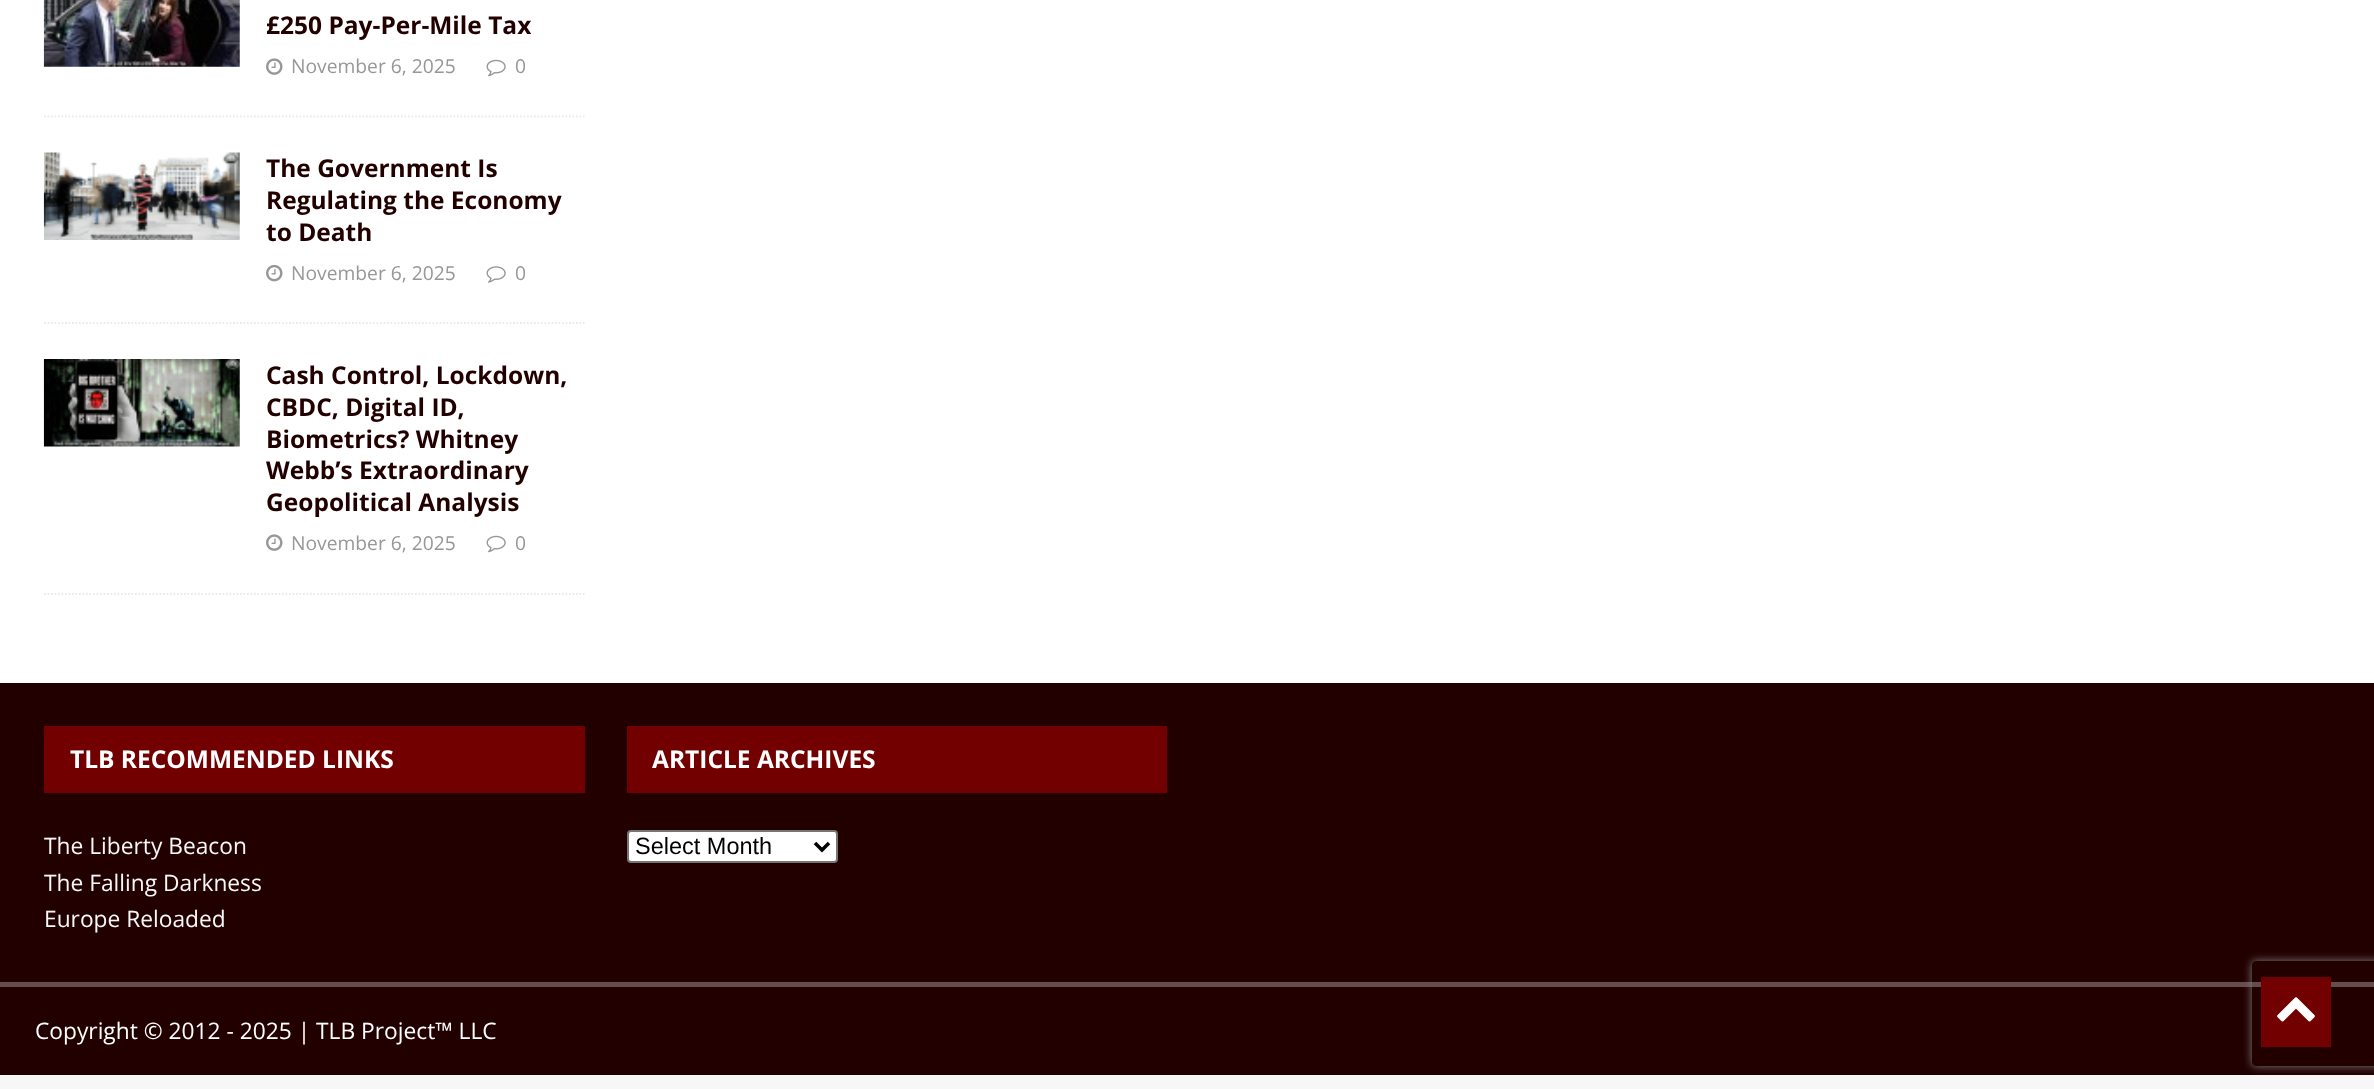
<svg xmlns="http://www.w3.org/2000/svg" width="2374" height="1089">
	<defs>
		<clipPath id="clip1"><path d="M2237 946H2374V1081H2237ZM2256 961H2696C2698 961 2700 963 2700 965V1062C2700 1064 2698 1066 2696 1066H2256C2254 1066 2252 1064 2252 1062V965C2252 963 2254 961 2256 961Z" clip-rule="evenodd" /></clipPath>
	</defs>
	<rect width="100%" height="100%" fill="#F7F7F7" />
	<rect x="0" y="0" width="2374" height="683" fill="#FFFFFF" />
	<path d="M44 116.5H584.5" fill="none" stroke="#EBEBEB" stroke-width="1.8" stroke-dasharray="1.75 1.75" />
	<image x="43" y="0" width="197" height="67" href="assets/img1.png" />
	<text x="266" y="34" font-family="Open Sans" font-size="24.5" font-weight="700" fill="#220000">£250 Pay-Per-Mile Tax</text>
	<image x="266" y="58" width="17" height="17" href="assets/img2.png" />
	<text x="291" y="73" font-family="Open Sans" font-size="19.25" fill="#979797">November 6, 2025</text>
	<image x="486" y="59" width="20" height="18" href="assets/img3.png" />
	<text x="515" y="73" font-family="Open Sans" font-size="19.25" fill="#979797">0</text>
	<path d="M44 323H584.5" fill="none" stroke="#EBEBEB" stroke-width="1.8" stroke-dasharray="1.75 1.75" />
	<image x="43" y="152" width="197" height="88" href="assets/img4.png" />
	<g font-family="Open Sans" font-size="24.5" font-weight="700" fill="#220000">
		<text x="266" y="177">The Government Is</text>
		<text x="266" y="209">Regulating the Economy</text>
		<text x="266" y="241">to Death</text>
	</g>
	<image x="266" y="264" width="17" height="18" href="assets/img5.png" />
	<text x="291" y="280" font-family="Open Sans" font-size="19.25" fill="#979797">November 6, 2025</text>
	<image x="486" y="266" width="20" height="17" href="assets/img6.png" />
	<text x="515" y="280" font-family="Open Sans" font-size="19.25" fill="#979797">0</text>
	<path d="M44 594H584.5" fill="none" stroke="#EBEBEB" stroke-width="1.8" stroke-dasharray="1.75 1.75" />
	<image x="43" y="359" width="197" height="88" href="assets/img7.png" />
	<g font-family="Open Sans" font-size="24.5" font-weight="700" fill="#220000">
		<text x="266" y="384">Cash Control, Lockdown,</text>
		<text x="266" y="416">CBDC, Digital ID,</text>
		<text x="266" y="448">Biometrics? Whitney</text>
		<text x="266" y="479">Webb’s Extraordinary</text>
		<text x="266" y="511">Geopolitical Analysis</text>
	</g>
	<image x="266" y="534" width="17" height="17" href="assets/img2.png" />
	<text x="291" y="550" font-family="Open Sans" font-size="19.25" fill="#979797">November 6, 2025</text>
	<image x="486" y="535" width="20" height="18" href="assets/img3.png" />
	<text x="515" y="550" font-family="Open Sans" font-size="19.25" fill="#979797">0</text>
	<rect x="0" y="683" width="2374" height="299" fill="#220000" />
	<rect x="0" y="987" width="2374" height="88" fill="#220000" />
	<rect x="0" y="982" width="2374" height="5" fill="#644D4D" />
	<g clip-path="url(#clip1)">
		<rect x="2252" y="961" width="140" height="105" rx="4" fill="#808080" filter="blur(4.5px)" />
	</g>
	<rect x="2261" y="977" width="70" height="70" fill="#720001" />
	<image x="2277" y="997" width="38" height="25" href="assets/img8.png" />
	<rect x="44" y="726" width="541" height="67" fill="#720001" />
	<text x="70" y="768" font-family="Open Sans" font-size="24.5" font-weight="700" fill="#FFFFFF">TLB RECOMMENDED LINKS</text>
	<g font-family="Open Sans" font-size="22.75" fill="#F7F7F7">
		<text x="44" y="854">The Liberty Beacon</text>
		<text x="44" y="891">The Falling Darkness</text>
		<text x="44" y="927">Europe Reloaded</text>
	</g>
	<rect x="627" y="726" width="540" height="67" fill="#720001" />
	<text x="652" y="768" font-family="Open Sans" font-size="24.5" font-weight="700" fill="#FFFFFF">ARTICLE ARCHIVES</text>
	<rect x="628" y="831" width="209" height="31" rx="3" fill="#FFFFFF" stroke="#767676" stroke-width="2" />
	<path d="M815 843L822 850L829 843" fill="none" stroke="#000000" stroke-width="3.5" />
	<text x="635" y="854" font-family="Liberation Sans" font-size="23.5" fill="#000000">Select Month</text>
	<text x="35" y="1039" font-family="Open Sans" font-size="22.75" fill="#FFFFFF">Copyright © 2012 - 2025 | TLB Project™ LLC</text>
</svg>
